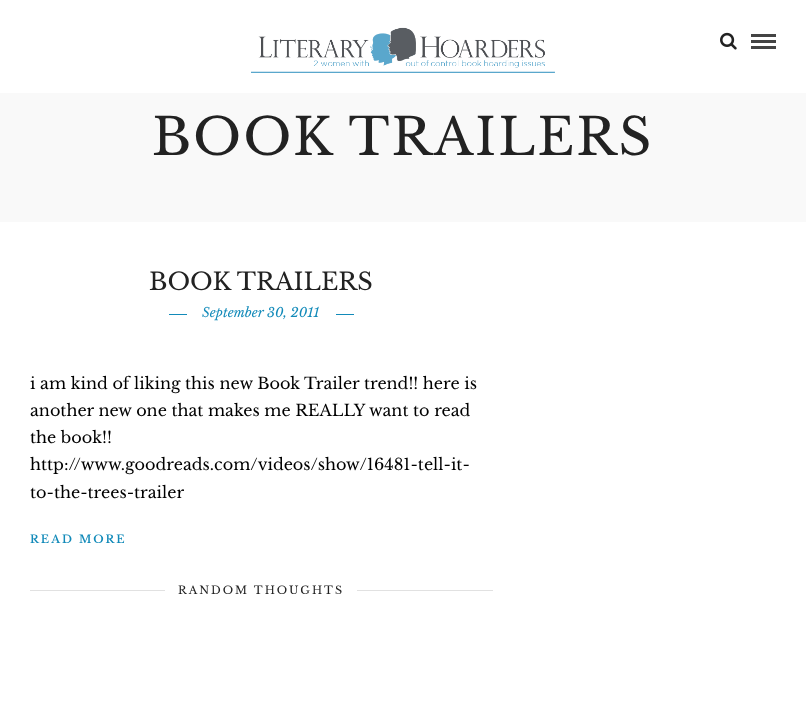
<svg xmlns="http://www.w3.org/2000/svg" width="806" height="719">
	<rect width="100%" height="100%" fill="#FFFFFF" />
	<image x="251" y="27" width="304" height="46" href="assets/img1.png" />
	<image x="720" y="32" width="17" height="18" href="assets/img2.png" />
	<rect x="751" y="34" width="25" height="3" fill="#444444" />
	<rect x="751" y="40" width="25" height="3" fill="#444444" />
	<rect x="751" y="46" width="25" height="3" fill="#444444" />
	<rect x="0" y="93" width="806" height="129" fill="#F9F9F9" />
	<text x="152" y="155" font-family="Libre Baskerville" font-size="51" letter-spacing="2" fill="#222222">BOOK TRAILERS</text>
	<text x="149" y="290" font-family="Libre Baskerville" font-size="24" fill="#222222">BOOK TRAILERS</text>
	<rect x="169" y="314" width="185" height="1" fill="#128AB9" />
	<rect x="187" y="314" width="149" height="1" fill="#FFFFFF" />
	<text x="202" y="317" font-family="Libre Baskerville" font-size="13" font-style="italic" fill="#128AB9">September 30, 2011</text>
	<g font-family="Libre Baskerville" font-size="16" fill="#000000">
		<text x="30" y="389">i am kind of liking this new Book Trailer trend!! here is</text>
		<text x="30" y="416">another new one that makes me REALLY want to read</text>
		<text x="30" y="443">the book!!</text>
		<text x="30" y="470">http://www.goodreads.com/videos/show/16481-tell-it-</text>
		<text x="30" y="498">to-the-trees-trailer</text>
	</g>
	<text x="30" y="543" font-family="Libre Baskerville" font-size="11" font-weight="600" letter-spacing="2" fill="#128AB9">READ MORE</text>
	<rect x="30" y="590" width="463" height="1" fill="#E1E1E1" />
	<rect x="165" y="590" width="192" height="1" fill="#FFFFFF" />
	<text x="178" y="594" font-family="Libre Baskerville" font-size="11" letter-spacing="2" fill="#222222">RANDOM THOUGHTS</text>
</svg>
